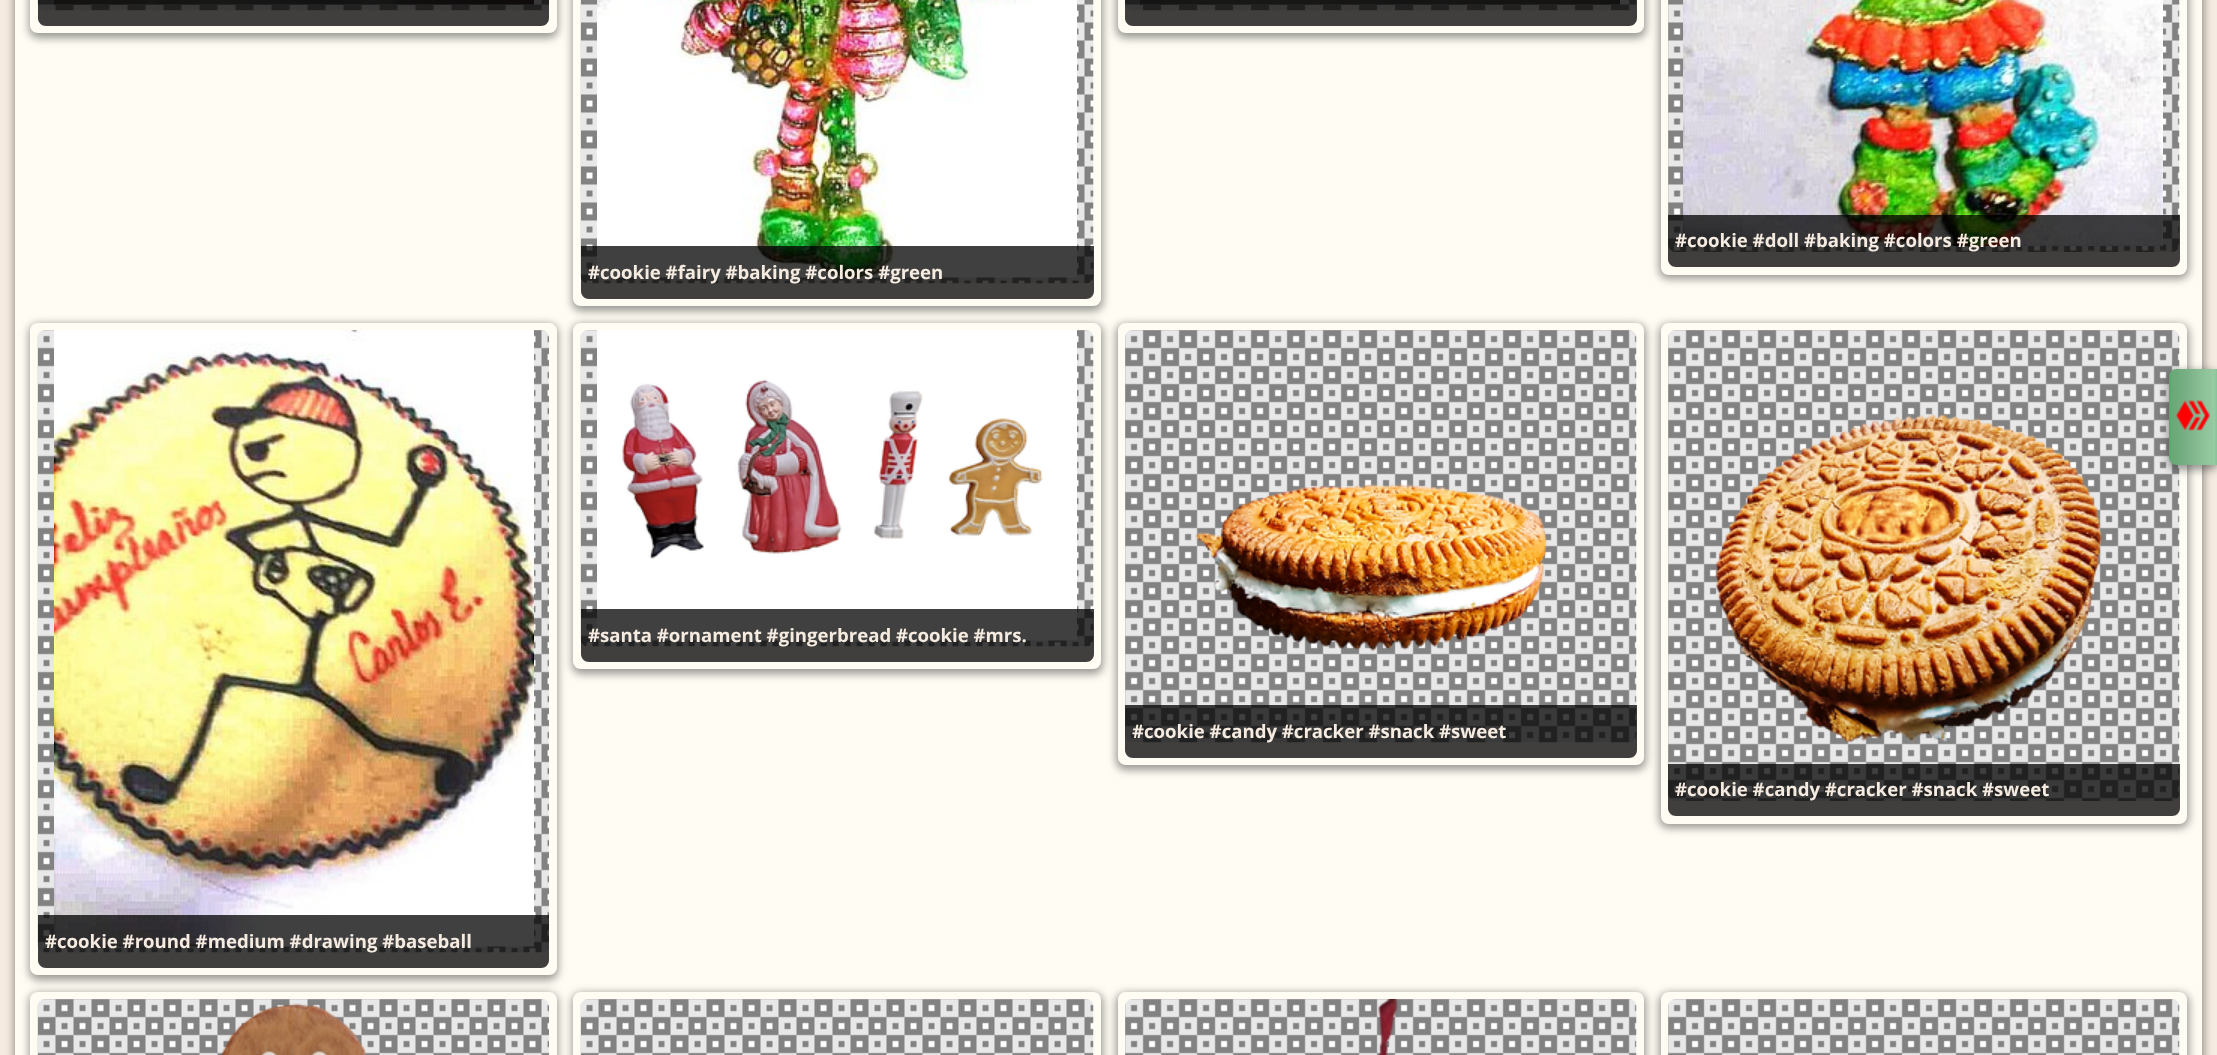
<svg xmlns="http://www.w3.org/2000/svg" width="2217" height="1055">
	<defs>
		<clipPath id="clip1"><path d="M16 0H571V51H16ZM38-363H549C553.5-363 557-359.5 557-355V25C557 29.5 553.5 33 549 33H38C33.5 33 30 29.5 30 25V-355C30-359.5 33.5-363 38-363Z" clip-rule="evenodd" /></clipPath>
		<clipPath id="clip2"><path d="M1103 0H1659V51H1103ZM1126-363H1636C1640.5-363 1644-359.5 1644-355V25C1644 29.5 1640.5 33 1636 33H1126C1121.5 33 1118 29.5 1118 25V-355C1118-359.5 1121.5-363 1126-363Z" clip-rule="evenodd" /></clipPath>
		<clipPath id="clip3"><path d="M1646 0H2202V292H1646ZM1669-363H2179C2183.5-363 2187-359.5 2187-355V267C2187 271.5 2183.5 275 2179 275H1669C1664.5 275 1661 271.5 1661 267V-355C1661-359.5 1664.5-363 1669-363Z" clip-rule="evenodd" /></clipPath>
		<clipPath id="clip4"><path d="M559 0H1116V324H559ZM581-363H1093C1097.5-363 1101-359.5 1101-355V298C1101 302.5 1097.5 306 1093 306H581C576.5 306 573 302.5 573 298V-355C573-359.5 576.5-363 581-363Z" clip-rule="evenodd" /></clipPath>
		<clipPath id="clip5"><path d="M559 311H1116V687H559ZM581 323H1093C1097.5 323 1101 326.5 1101 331V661C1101 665.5 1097.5 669 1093 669H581C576.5 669 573 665.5 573 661V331C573 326.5 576.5 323 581 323Z" clip-rule="evenodd" /></clipPath>
		<clipPath id="clip6"><path d="M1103 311H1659V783H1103ZM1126 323H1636C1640.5 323 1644 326.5 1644 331V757C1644 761.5 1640.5 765 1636 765H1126C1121.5 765 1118 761.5 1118 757V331C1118 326.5 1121.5 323 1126 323Z" clip-rule="evenodd" /></clipPath>
		<clipPath id="clip7"><path d="M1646 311H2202V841H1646ZM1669 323H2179C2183.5 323 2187 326.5 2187 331V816C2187 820.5 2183.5 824 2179 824H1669C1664.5 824 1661 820.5 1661 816V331C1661 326.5 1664.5 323 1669 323Z" clip-rule="evenodd" /></clipPath>
		<clipPath id="clip8"><path d="M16 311H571V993H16ZM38 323H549C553.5 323 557 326.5 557 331V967C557 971.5 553.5 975 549 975H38C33.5 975 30 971.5 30 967V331C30 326.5 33.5 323 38 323Z" clip-rule="evenodd" /></clipPath>
		<clipPath id="clip9"><path d="M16 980H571V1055H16ZM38 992H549C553.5 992 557 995.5 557 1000V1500C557 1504.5 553.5 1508 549 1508H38C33.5 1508 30 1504.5 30 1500V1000C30 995.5 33.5 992 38 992Z" clip-rule="evenodd" /></clipPath>
		<clipPath id="clip10"><path d="M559 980H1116V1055H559ZM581 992H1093C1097.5 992 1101 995.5 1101 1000V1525C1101 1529.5 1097.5 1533 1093 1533H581C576.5 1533 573 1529.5 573 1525V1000C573 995.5 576.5 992 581 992Z" clip-rule="evenodd" /></clipPath>
		<clipPath id="clip11"><path d="M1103 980H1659V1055H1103ZM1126 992H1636C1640.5 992 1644 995.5 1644 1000V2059C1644 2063.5 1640.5 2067 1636 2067H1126C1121.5 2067 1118 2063.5 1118 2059V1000C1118 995.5 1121.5 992 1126 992Z" clip-rule="evenodd" /></clipPath>
		<clipPath id="clip12"><path d="M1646 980H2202V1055H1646ZM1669 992H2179C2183.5 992 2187 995.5 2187 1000V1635C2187 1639.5 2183.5 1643 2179 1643H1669C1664.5 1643 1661 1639.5 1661 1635V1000C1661 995.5 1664.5 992 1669 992Z" clip-rule="evenodd" /></clipPath>
	</defs>
	<rect width="100%" height="100%" fill="#F5EBE0" />
	<rect x="14" y="-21" width="2190" height="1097" rx="9" fill="#333333" fill-opacity="0.5" filter="blur(4px)" />
	<rect x="15" y="0" width="2187" height="1055" fill="#FEFCF3" />
	<g clip-path="url(#clip1)">
		<rect x="29" y="-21" width="529" height="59" rx="9" fill="#333333" fill-opacity="0.5" filter="blur(4px)" />
	</g>
	<image x="37" y="0" width="512" height="11" href="assets/img1.png" />
	<image x="54" y="0" width="480" height="5" href="assets/img2.png" />
	<path d="M38-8H549V18C549 22.5 545.5 26 541 26H46C41.5 26 38 22.5 38 18Z" fill="#000000" fill-opacity="0.75" />
	<g clip-path="url(#clip2)">
		<rect x="1116" y="-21" width="530" height="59" rx="9" fill="#333333" fill-opacity="0.5" filter="blur(4px)" />
	</g>
	<image x="1125" y="0" width="512" height="11" href="assets/img3.png" />
	<image x="1140" y="0" width="480" height="5" href="assets/img4.png" />
	<path d="M1125-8H1637V18C1637 22.5 1633.5 26 1629 26H1133C1128.5 26 1125 22.5 1125 18Z" fill="#000000" fill-opacity="0.75" />
	<g clip-path="url(#clip3)">
		<rect x="1659" y="-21" width="530" height="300" rx="9" fill="#333333" fill-opacity="0.5" filter="blur(4px)" />
	</g>
	<image x="1668" y="0" width="512" height="252" href="assets/img5.png" />
	<image x="1683" y="0" width="480" height="246" href="assets/img6.png" />
	<path d="M1668 215H2180V259C2180 263.5 2176.5 267 2172 267H1676C1671.5 267 1668 263.5 1668 259Z" fill="#000000" fill-opacity="0.75" />
	<text x="1675" y="247" font-family="Open Sans" font-size="18.6" font-weight="700" fill="#F5EBE0">#cookie #doll #baking #colors #green</text>
	<g clip-path="url(#clip4)">
		<rect x="572" y="-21" width="531" height="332" rx="9" fill="#333333" fill-opacity="0.5" filter="blur(4px)" />
	</g>
	<image x="580" y="0" width="514" height="284" href="assets/img7.png" />
	<image x="597" y="0" width="480" height="278" href="assets/img8.png" />
	<path d="M581 246H1094V291C1094 295.5 1090.5 299 1086 299H589C584.5 299 581 295.5 581 291Z" fill="#000000" fill-opacity="0.75" />
	<text x="588" y="279" font-family="Open Sans" font-size="18.6" font-weight="700" fill="#F5EBE0">#cookie #fairy #baking #colors #green</text>
	<g clip-path="url(#clip5)">
		<rect x="572" y="324" width="531" height="350" rx="9" fill="#333333" fill-opacity="0.5" filter="blur(4px)" />
	</g>
	<image x="580" y="330" width="514" height="317" href="assets/img9.png" />
	<image x="597" y="330" width="480" height="311" href="assets/img10.png" />
	<path d="M581 609H1094V654C1094 658.5 1090.5 662 1086 662H589C584.5 662 581 658.5 581 654Z" fill="#000000" fill-opacity="0.75" />
	<text x="588" y="642" font-family="Open Sans" font-size="18.6" font-weight="700" fill="#F5EBE0">#santa #ornament #gingerbread #cookie #mrs.</text>
	<g clip-path="url(#clip6)">
		<rect x="1116" y="324" width="530" height="446" rx="9" fill="#333333" fill-opacity="0.5" filter="blur(4px)" />
	</g>
	<image x="1125" y="330" width="512" height="413" href="assets/img11.png" />
	<image x="1195" y="484" width="352" height="168" href="assets/img12.png" />
	<path d="M1125 705H1637V750C1637 754.5 1633.5 758 1629 758H1133C1128.5 758 1125 754.5 1125 750Z" fill="#000000" fill-opacity="0.75" />
	<text x="1132" y="738" font-family="Open Sans" font-size="18.6" font-weight="700" fill="#F5EBE0">#cookie #candy #cracker #snack #sweet</text>
	<g clip-path="url(#clip7)">
		<rect x="1659" y="324" width="530" height="504" rx="9" fill="#333333" fill-opacity="0.5" filter="blur(4px)" />
	</g>
	<image x="1668" y="330" width="512" height="471" href="assets/img13.png" />
	<image x="1715" y="414" width="387" height="329" href="assets/img14.png" />
	<path d="M1668 764H2180V808C2180 812.5 2176.5 816 2172 816H1676C1671.5 816 1668 812.5 1668 808Z" fill="#000000" fill-opacity="0.75" />
	<text x="1675" y="796" font-family="Open Sans" font-size="18.6" font-weight="700" fill="#F5EBE0">#cookie #candy #cracker #snack #sweet</text>
	<g clip-path="url(#clip8)">
		<rect x="29" y="324" width="529" height="656" rx="9" fill="#333333" fill-opacity="0.5" filter="blur(4px)" />
	</g>
	<image x="37" y="330" width="512" height="623" href="assets/img15.png" />
	<image x="54" y="330" width="480" height="617" href="assets/img16.png" />
	<path d="M38 915H549V960C549 964.5 545.5 968 541 968H46C41.5 968 38 964.5 38 960Z" fill="#000000" fill-opacity="0.75" />
	<text x="45" y="948" font-family="Open Sans" font-size="18.6" font-weight="700" fill="#F5EBE0">#cookie #round #medium #drawing #baseball</text>
	<g clip-path="url(#clip9)">
		<rect x="29" y="993" width="529" height="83" rx="9" fill="#333333" fill-opacity="0.5" filter="blur(4px)" />
	</g>
	<image x="37" y="999" width="512" height="56" href="assets/img17.png" />
	<image x="220" y="1003" width="147" height="52" href="assets/img18.png" />
	<g clip-path="url(#clip10)">
		<rect x="572" y="993" width="531" height="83" rx="9" fill="#333333" fill-opacity="0.5" filter="blur(4px)" />
	</g>
	<image x="580" y="999" width="514" height="56" href="assets/img19.png" />
	<g clip-path="url(#clip11)">
		<rect x="1116" y="993" width="530" height="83" rx="9" fill="#333333" fill-opacity="0.5" filter="blur(4px)" />
	</g>
	<image x="1125" y="999" width="512" height="56" href="assets/img20.png" />
	<image x="1378" y="999" width="21" height="56" href="assets/img21.png" />
	<g clip-path="url(#clip12)">
		<rect x="1659" y="993" width="530" height="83" rx="9" fill="#333333" fill-opacity="0.5" filter="blur(4px)" />
	</g>
	<image x="1668" y="999" width="512" height="56" href="assets/img20.png" />
	<rect x="2168" y="371" width="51" height="99" rx="9" fill="#333333" fill-opacity="0.5" filter="blur(4px)" />
	<image x="2169" y="369" width="48" height="96" href="assets/img22.png" />
	<image x="2175" y="400" width="35" height="31" href="assets/img23.png" />
</svg>
